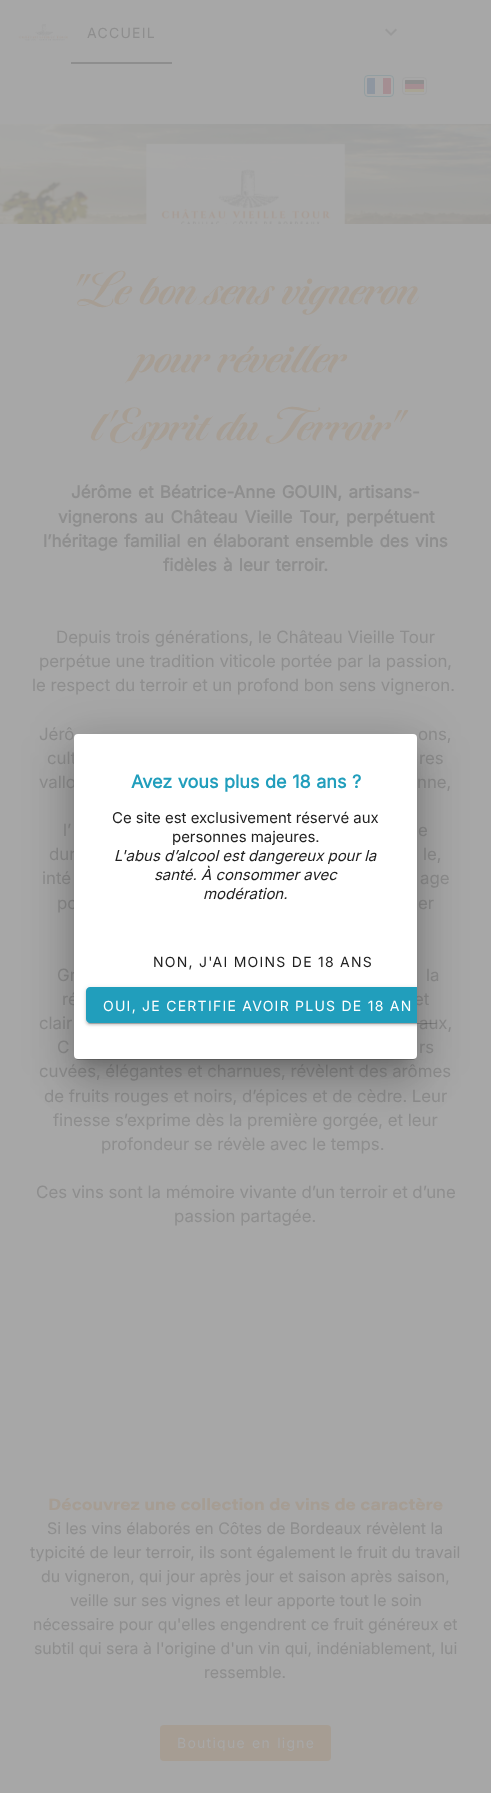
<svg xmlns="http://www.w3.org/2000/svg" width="491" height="1793">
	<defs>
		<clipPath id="clip1"><rect x="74" y="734" width="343" height="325" rx="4" /></clipPath>
		<clipPath id="clip2"><path d="M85 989H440V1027H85ZM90 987H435C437 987 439 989 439 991V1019C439 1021 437 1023 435 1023H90C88 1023 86 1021 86 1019V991C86 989 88 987 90 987Z" clip-rule="evenodd" /></clipPath>
	</defs>
	<rect width="100%" height="100%" fill="#A7A7A7" />
	<image x="18" y="24" width="50" height="17" href="assets/img1.png" />
	<text x="87" y="38" font-family="'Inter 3'" font-size="14" letter-spacing="1.25" fill="#8E8E8E">ACCUEIL</text>
	<image x="385" y="28" width="12" height="8" href="assets/img2.png" />
	<rect x="71" y="62" width="101" height="2" fill="#8E8E8E" />
	<rect x="364.5" y="75.5" width="29" height="21" rx="3.5" fill="none" stroke="#929EA1" />
	<path d="M368 78H375V94H368C367.5 94 367 93.5 367 93V79C367 78.5 367.5 78 368 78Z" fill="#8E96A0" />
	<path d="M383 78H390C390.5 78 391 78.5 391 79V93C391 93.5 390.5 94 390 94H383Z" fill="#A48E92" />
	<rect x="402.5" y="77.5" width="24" height="17" rx="3.5" fill="none" stroke="#A2A2A2" />
	<rect x="405" y="80" width="19" height="12" rx="1" fill="#A48E92" />
	<path d="M406 80H423C423.5 80 424 80.5 424 81V84H405V81C405 80.5 405.5 80 406 80Z" fill="#8E8E8E" />
	<path d="M405 89H424V91C424 91.5 423.5 92 423 92H406C405.5 92 405 91.5 405 91Z" fill="#A8A495" />
	<image x="0" y="124" width="491" height="100" href="assets/img3.png" />
	<g font-family="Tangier" font-size="48" font-weight="700" fill="#A69D93">
		<text x="72" y="304">"Le bon sens vigneron</text>
		<text x="136" y="372">pour réveiller</text>
		<text x="92" y="440">l'Esprit du Terroir"</text>
	</g>
	<g font-family="Inter" font-size="17" font-weight="700" fill="#8E8E8E">
		<text x="71" y="498" word-spacing="1.5">Jérôme et Béatrice-Anne GOUIN, artisans-</text>
		<text x="58" y="523" word-spacing="2">vignerons au Château Vieille Tour, perpétuent</text>
		<text x="43" y="547" word-spacing="1.5">l’héritage familial en élaborant ensemble des vins</text>
		<text x="163" y="571" word-spacing="1.5">fidèles à leur terroir.</text>
	</g>
	<g font-family="Inter" font-size="17" fill="#8E8E8E">
		<text x="56" y="643">Depuis trois générations, le Château Vieille Tour</text>
		<text x="39" y="667">perpétue une tradition viticole portée par la passion,</text>
		<text x="32" y="691">le respect du terroir et un profond bon sens vigneron.</text>
		<text x="39" y="740">Jérô</text>
		<text x="418" y="740">ons,</text>
		<text x="47" y="764">cult</text>
		<text x="419" y="764">res</text>
		<text x="39" y="788">vallo</text>
		<text x="417" y="788">nne,</text>
		<text x="63" y="836">l’</text>
		<text x="418" y="836">e</text>
		<text x="49" y="860">dur</text>
		<text x="423" y="860">le,</text>
		<text x="42" y="884">inté</text>
		<text x="420" y="884">age</text>
		<text x="57" y="909">po</text>
		<text x="418" y="909">er</text>
		<text x="57" y="981">Gr</text>
		<text x="426" y="981">la</text>
		<text x="62" y="1005">ré</text>
		<text x="414" y="1005">et</text>
		<text x="39" y="1029">clair</text>
		<text x="419" y="1029">aux,</text>
		<text x="57" y="1053">C</text>
		<text x="419" y="1053">rs</text>
		<text x="39" y="1077">cuvées, élégantes et charnues, révèlent des arômes</text>
		<text x="44" y="1102">de fruits rouges et noirs, d’épices et de cèdre. Leur</text>
		<text x="53" y="1126">finesse s’exprime dès la première gorgée, et leur</text>
		<text x="101" y="1150">profondeur se révèle avec le temps.</text>
		<text x="36" y="1198">Ces vins sont la mémoire vivante d’un terroir et d’une</text>
		<text x="174" y="1222">passion partagée.</text>
	</g>
	<text x="48" y="1510" font-family="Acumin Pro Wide" font-size="16" font-weight="700" fill="#A69D93">Découvrez une collection de vins de caractère</text>
	<g font-family="'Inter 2'" font-size="16" fill="#8E8E8E">
		<text x="47" y="1534">Si les vins élaborés en Côtes de Bordeaux révèlent la</text>
		<text x="30" y="1558">typicité de leur terroir, ils sont également le fruit du travail</text>
		<text x="41" y="1582">du vigneron, qui jour après jour et saison après saison,</text>
		<text x="70" y="1606">veille sur ses vignes et leur apporte tout le soin</text>
		<text x="33" y="1630">nécessaire pour qu'elles engendrent ce fruit généreux et</text>
		<text x="34" y="1654">subtil qui sera à l'origine d'un vin qui, indéniablement, lui</text>
		<text x="204" y="1678">ressemble.</text>
	</g>
	<rect x="160" y="1725" width="171" height="36" rx="4" fill="#A69D93" />
	<text x="177" y="1748" word-spacing="1" font-family="'Inter 3'" font-size="14" letter-spacing="1.25" fill="#A8A8A8">Boutique en ligne</text>
	<rect x="66" y="735" width="359" height="341" rx="12" fill="#000000" fill-opacity="0.12" filter="blur(23px)" />
	<rect x="71" y="755" width="349" height="331" rx="7" fill="#000000" fill-opacity="0.14" filter="blur(19px)" />
	<rect x="81" y="752" width="329" height="311" fill="#000000" fill-opacity="0.2" filter="blur(7.5px)" />
	<g clip-path="url(#clip1)">
		<rect x="74" y="736" width="343" height="325" rx="4" fill="#000000" fill-opacity="0.14" filter="blur(1px)" />
	</g>
	<rect x="76" y="739" width="339" height="321" rx="2" fill="#000000" fill-opacity="0.2" filter="blur(0.5px)" />
	<rect x="74" y="734" width="343" height="325" rx="4" fill="#FFFFFF" />
	<text x="131" y="788" word-spacing="0.5" font-family="Inter" font-size="18" font-weight="700" fill="#219EBC">Avez vous plus de 18 ans ?</text>
	<g font-family="'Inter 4'" font-size="15" fill="#212121">
		<text x="112" y="823">Ce site est exclusivement réservé aux</text>
		<text x="172" y="842">personnes majeures.</text>
	</g>
	<g font-family="Inter" font-size="15" font-style="italic" fill="#212121">
		<text x="114" y="861">L'abus d’alcool est dangereux pour la</text>
		<text x="154" y="880">santé. À consommer avec</text>
		<text x="203" y="899">modération.</text>
	</g>
	<text x="153" y="967" font-family="'Inter 3'" font-size="14" letter-spacing="1.25" fill="#212121">NON, J'AI MOINS DE 18 ANS</text>
	<g clip-path="url(#clip1)">
		<rect x="86" y="988" width="353" height="36" rx="4" fill="#000000" fill-opacity="0.12" filter="blur(2.5px)" />
		<rect x="86" y="989" width="353" height="36" rx="4" fill="#000000" fill-opacity="0.14" filter="blur(1px)" />
	</g>
	<g clip-path="url(#clip2)">
		<rect x="88" y="992" width="349" height="32" rx="2" fill="#000000" fill-opacity="0.2" filter="blur(0.5px)" />
	</g>
	<path d="M90 987H417V1023H90C88 1023 86 1021 86 1019V991C86 989 88 987 90 987Z" fill="#219EBC" />
	<text x="103" y="1011" font-family="'Inter 3'" font-size="14" letter-spacing="1.25" fill="#FFFFFF">OUI, JE CERTIFIE AVOIR PLUS DE 18 AN</text>
</svg>
